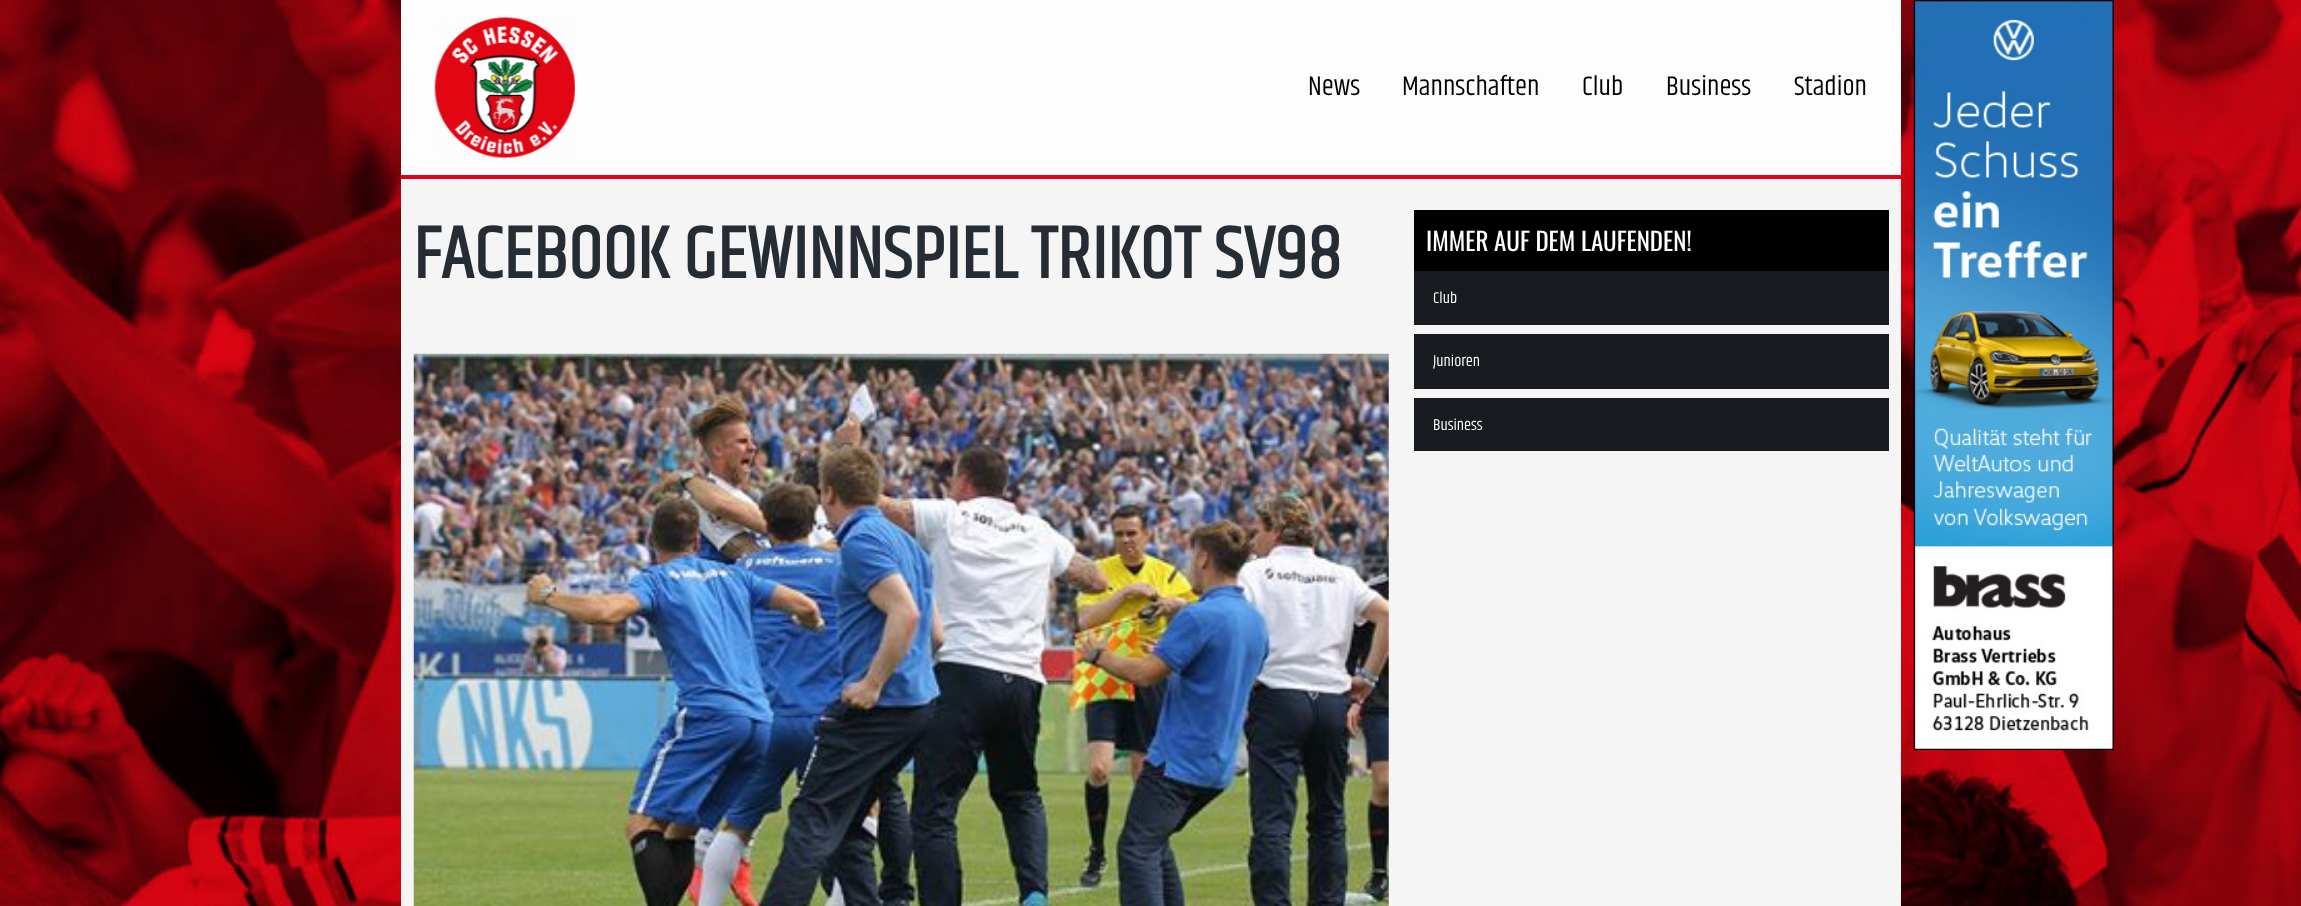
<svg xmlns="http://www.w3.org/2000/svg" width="2301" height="906">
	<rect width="100%" height="100%" fill="#FFFFFF" />
	<image x="0" y="0" width="2301" height="906" href="assets/img1.png" />
	<rect x="401" y="179" width="1500" height="727" fill="#F5F5F5" />
	<rect x="401" y="175" width="1500" height="4" fill="#E2001A" />
	<rect x="401" y="0" width="1500" height="175" fill="#FDFDFD" />
	<image x="434" y="17" width="141" height="141" href="assets/img2.png" />
	<g font-family="Khand" font-size="27.5" fill="#000000">
		<text x="1308" y="95">News</text>
		<text x="1402" y="95">Mannschaften</text>
		<text x="1582" y="95">Club</text>
		<text x="1666" y="95">Business</text>
		<text x="1794" y="95">Stadion</text>
	</g>
	<text x="413" y="278" font-family="Khand" font-size="75" font-weight="700" fill="#252C33">FACEBOOK GEWINNSPIEL TRIKOT SV98</text>
	<image x="413" y="353" width="976" height="553" href="assets/img3.png" />
	<rect x="1414" y="210" width="475" height="61" fill="#000000" />
	<text x="1426" y="251" font-family="Oswald" font-size="25" fill="#FFFFFF">IMMER AUF DEM LAUFENDEN!</text>
	<rect x="1414" y="271" width="475" height="54" fill="#181C20" />
	<text x="1433" y="303" font-family="Khand" font-size="16" fill="#FFFFFF">Club</text>
	<rect x="1414" y="334" width="475" height="55" fill="#181C20" />
	<text x="1433" y="366" font-family="Khand" font-size="16" fill="#FFFFFF">Junioren</text>
	<rect x="1414" y="398" width="475" height="53" fill="#181C20" />
	<text x="1433" y="430" font-family="Khand" font-size="16" fill="#FFFFFF">Business</text>
	<image x="1913" y="0" width="201" height="750" href="assets/img4.png" />
</svg>
